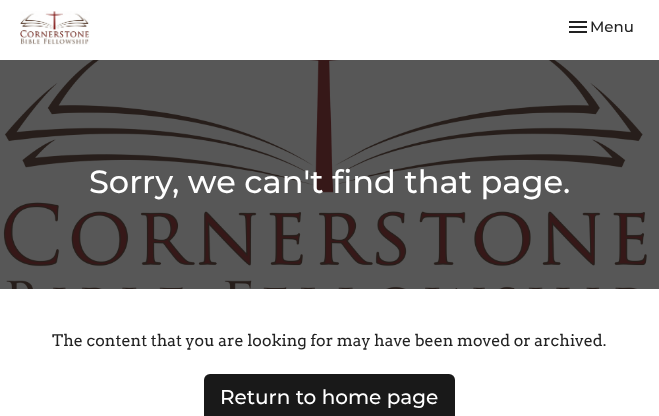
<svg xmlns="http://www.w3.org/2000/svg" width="659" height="416">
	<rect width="100%" height="100%" fill="#FFFFFF" />
	<rect x="0" y="60" width="659" height="229" fill="#575757" />
	<image x="20" y="11" width="70" height="34" href="assets/img1.png" />
	<image x="569" y="21" width="18" height="12" href="assets/img2.png" />
	<text x="590" y="32" font-family="Montserrat" font-size="15" font-weight="500" fill="#222222">Menu</text>
	<image x="3" y="60" width="644" height="229" href="assets/img3.png" />
	<text x="89" y="193" font-family="Montserrat" font-size="32" font-weight="500" fill="#FFFFFF">Sorry, we can't find that page.</text>
	<text x="52" y="346" font-family="Arvo" font-size="16" fill="#222222">The content that you are looking for may have been moved or archived.</text>
	<rect x="204" y="374" width="251" height="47" rx="6" fill="#191919" />
	<text x="220" y="404" font-family="Montserrat" font-size="20" font-weight="500" fill="#FFFFFF">Return to home page</text>
</svg>
